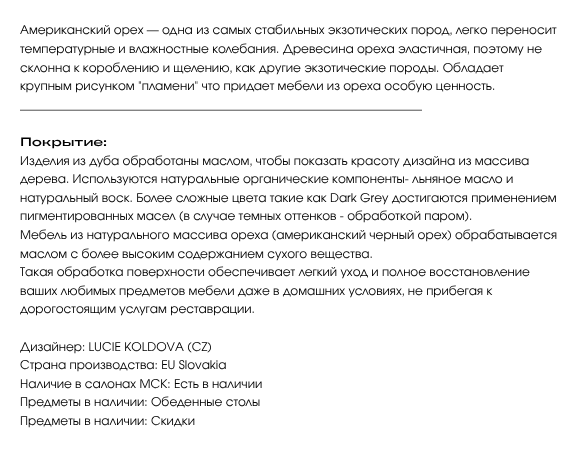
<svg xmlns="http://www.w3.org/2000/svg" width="578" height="460">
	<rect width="100%" height="100%" fill="#FFFFFF" />
	<g font-family="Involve" font-size="12" fill="#000000">
		<text x="20" y="34">Американский орех — одна из самых стабильных экзотических пород, легко переносит</text>
		<text x="20" y="53">температурные и влажностные колебания. Древесина ореха эластичная, поэтому не</text>
		<text x="20" y="72">склонна к короблению и щелению, как другие экзотические породы. Обладает</text>
		<text x="20" y="90">крупным рисунком "пламени" что придает мебели из ореха особую ценность.</text>
		<text x="20" y="109">___________________________________________________________________</text>
	</g>
	<text x="20" y="146" font-family="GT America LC" font-size="12" font-weight="500" fill="#000000">Покрытие:</text>
	<g font-family="Involve" font-size="12" fill="#000000">
		<text x="20" y="165">Изделия из дуба обработаны маслом, чтобы показать красоту дизайна из массива</text>
		<text x="20" y="183">дерева. Используются натуральные органические компоненты- льняное масло и</text>
		<text x="20" y="202">натуральный воск. Более сложные цвета такие как Dark Grey достигаются применением</text>
		<text x="20" y="220">пигментированных масел (в случае темных оттенков - обработкой паром).</text>
		<text x="20" y="239">Мебель из натурального массива ореха (американский черный орех) обрабатывается</text>
		<text x="20" y="258">маслом с более высоким содержанием сухого вещества.</text>
		<text x="20" y="276">Такая обработка поверхности обеспечивает легкий уход и полное восстановление</text>
		<text x="20" y="295">ваших любимых предметов мебели даже в домашних условиях, не прибегая к</text>
		<text x="20" y="313">дорогостоящим услугам реставрации.</text>
		<text x="20" y="351">Дизайнер: LUCIE KOLDOVA (CZ)</text>
		<text x="20" y="369">Страна производcтва: EU Slovakia</text>
		<text x="20" y="388">Наличие в салонах МСК: Eсть в наличии</text>
		<text x="20" y="406">Предметы в наличии: Обеденные столы</text>
		<text x="20" y="425">Предметы в наличии: Скидки</text>
	</g>
</svg>
